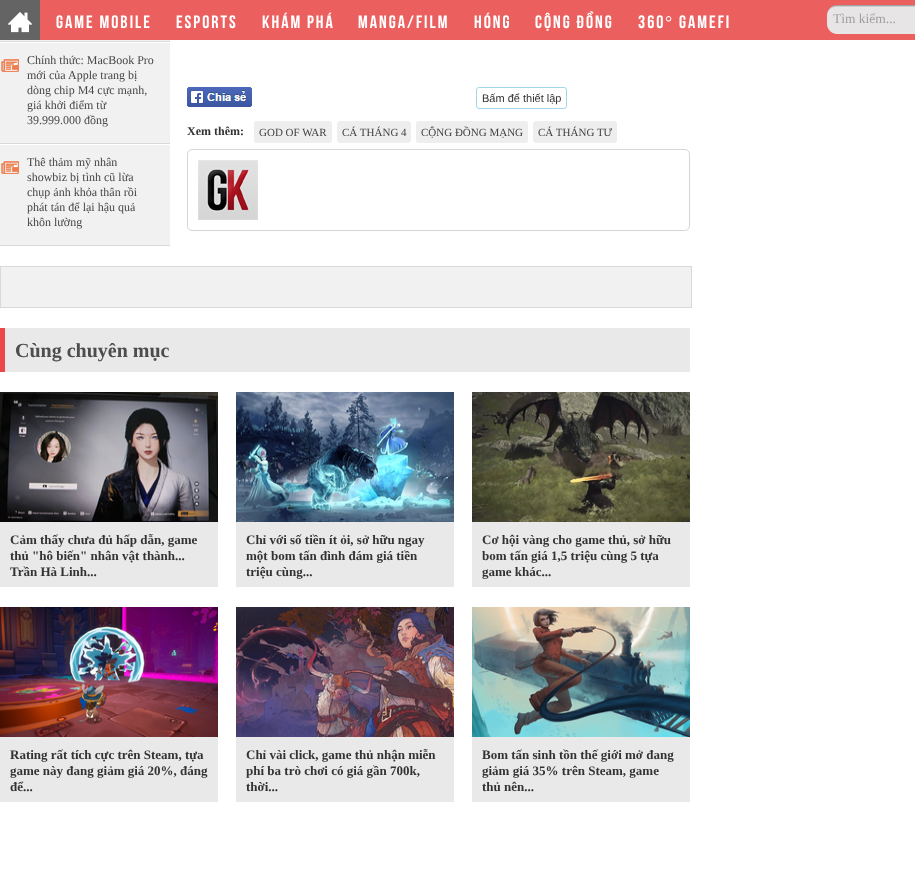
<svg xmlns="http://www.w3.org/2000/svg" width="915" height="883">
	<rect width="100%" height="100%" fill="#FFFFFF" />
	<rect x="40" y="0" width="875" height="40" fill="#EC5F5F" />
	<rect x="0" y="0" width="40" height="40" fill="#646464" />
	<image x="8" y="12" width="24" height="21" href="assets/img1.png" />
	<g font-family="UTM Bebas" font-size="18" letter-spacing="2" fill="#FFFFFF">
		<text x="56" y="28">GAME MOBILE</text>
		<text x="176" y="28">ESPORTS</text>
		<text x="262" y="28">KHÁM PHÁ</text>
		<text x="358" y="28">MANGA/FILM</text>
		<text x="474" y="28">HÓNG</text>
		<text x="535" y="28">CỘNG ĐỒNG</text>
		<text x="638" y="28">360</text>
	</g>
	<text x="665" y="28" font-family="Liberation Serif" font-size="18" letter-spacing="2" fill="#FFFFFF">°</text>
	<text x="679" y="28" font-family="UTM Bebas" font-size="18" letter-spacing="2" fill="#FFFFFF">GAMEFI</text>
	<image x="827" y="5" width="88" height="29" href="assets/img2.png" />
	<text x="833" y="23" font-family="Liberation Serif" font-size="13.5" fill="#A19F9F">Tìm kiếm...</text>
	<rect x="0" y="40" width="170" height="205" fill="#F2F1F1" />
	<rect x="0" y="41" width="170" height="1" fill="#DAD9D9" />
	<rect x="0" y="42" width="170" height="1" fill="#FFFFFF" />
	<rect x="0" y="143" width="170" height="1" fill="#DAD9D9" />
	<image x="1" y="59" width="18" height="13" href="assets/img3.png" />
	<g font-family="Liberation Serif" font-size="12" fill="#484747">
		<text x="27" y="64">Chính thức: MacBook Pro</text>
		<text x="27" y="79">mới của Apple trang bị</text>
		<text x="27" y="94">dòng chip M4 cực mạnh,</text>
		<text x="27" y="109">giá khởi điểm từ</text>
		<text x="27" y="124">39.999.000 đồng</text>
	</g>
	<rect x="0" y="144" width="170" height="1" fill="#FFFFFF" />
	<rect x="0" y="245" width="170" height="1" fill="#DAD9D9" />
	<image x="1" y="161" width="18" height="13" href="assets/img3.png" />
	<g font-family="Liberation Serif" font-size="12" fill="#484747">
		<text x="27" y="166">Thê thảm mỹ nhân</text>
		<text x="27" y="181">showbiz bị tình cũ lừa</text>
		<text x="27" y="196">chụp ảnh khỏa thân rồi</text>
		<text x="27" y="211">phát tán để lại hậu quả</text>
		<text x="27" y="226">khôn lường</text>
	</g>
	<image x="187" y="87" width="65" height="20" href="assets/img4.png" />
	<rect x="476.5" y="87.5" width="90" height="21" rx="2.5" fill="none" stroke="#A2D7EB" />
	<text x="482" y="102" font-family="Liberation Sans" font-size="11" fill="#333333">Bấm để thiết lập</text>
	<text x="187" y="135" font-family="Liberation Serif" font-size="12" font-weight="700" fill="#333333">Xem thêm:</text>
	<rect x="254" y="121" width="78" height="22" rx="3" fill="#EEEEEE" />
	<text x="259" y="136" font-family="Liberation Serif" font-size="11" fill="#414141">GOD OF WAR</text>
	<rect x="337" y="121" width="74" height="22" rx="3" fill="#EEEEEE" />
	<text x="342" y="136" font-family="Liberation Serif" font-size="11" fill="#414141">CÁ THÁNG 4</text>
	<rect x="416" y="121" width="112" height="22" rx="3" fill="#EEEEEE" />
	<text x="421" y="136" font-family="Liberation Serif" font-size="11" fill="#414141">CỘNG ĐỒNG MẠNG</text>
	<rect x="533" y="121" width="84" height="22" rx="3" fill="#EEEEEE" />
	<text x="538" y="136" font-family="Liberation Serif" font-size="11" fill="#414141">CÁ THÁNG TƯ</text>
	<rect x="187.5" y="149.5" width="502" height="81" rx="4.5" fill="none" stroke="#D6D6D6" />
	<image x="198" y="160" width="60" height="60" href="assets/img5.png" />
	<rect x="0.5" y="266.5" width="691" height="41" fill="#F2F1F1" stroke="#DAD9D9" />
	<rect x="5" y="328" width="685" height="44" fill="#EAE9E9" />
	<rect x="0" y="328" width="5" height="44" fill="#ED4848" />
	<text x="15" y="357" font-family="Liberation Serif" font-size="20" font-weight="700" fill="#4E4D4D">Cùng chuyên mục</text>
	<rect x="0" y="522" width="218" height="65" fill="#EAE9E9" />
	<image x="0" y="392" width="218" height="130" href="assets/img6.png" />
	<g font-family="Liberation Serif" font-size="13" font-weight="700" fill="#333333">
		<text x="10" y="544">Cảm thấy chưa đủ hấp dẫn, game</text>
		<text x="10" y="560">thủ "hô biến" nhân vật thành...</text>
		<text x="10" y="576">Trần Hà Linh...</text>
	</g>
	<rect x="236" y="522" width="218" height="65" fill="#EAE9E9" />
	<image x="236" y="392" width="218" height="130" href="assets/img7.png" />
	<g font-family="Liberation Serif" font-size="13" font-weight="700" fill="#333333">
		<text x="246" y="544">Chỉ với số tiền ít ỏi, sở hữu ngay</text>
		<text x="246" y="560">một bom tấn đình đám giá tiền</text>
		<text x="246" y="576">triệu cùng...</text>
	</g>
	<rect x="472" y="522" width="218" height="65" fill="#EAE9E9" />
	<image x="472" y="392" width="218" height="130" href="assets/img8.png" />
	<g font-family="Liberation Serif" font-size="13" font-weight="700" fill="#333333">
		<text x="482" y="544">Cơ hội vàng cho game thủ, sở hữu</text>
		<text x="482" y="560">bom tấn giá 1,5 triệu cùng 5 tựa</text>
		<text x="482" y="576">game khác...</text>
	</g>
	<rect x="0" y="737" width="218" height="65" fill="#EAE9E9" />
	<image x="0" y="607" width="218" height="130" href="assets/img9.png" />
	<g font-family="Liberation Serif" font-size="13" font-weight="700" fill="#333333">
		<text x="10" y="759">Rating rất tích cực trên Steam, tựa</text>
		<text x="10" y="775">game này đang giảm giá 20%, đáng</text>
		<text x="10" y="791">để...</text>
	</g>
	<rect x="236" y="737" width="218" height="65" fill="#EAE9E9" />
	<image x="236" y="607" width="218" height="130" href="assets/img10.png" />
	<g font-family="Liberation Serif" font-size="13" font-weight="700" fill="#333333">
		<text x="246" y="759">Chỉ vài click, game thủ nhận miễn</text>
		<text x="246" y="775">phí ba trò chơi có giá gần 700k,</text>
		<text x="246" y="791">thời...</text>
	</g>
	<rect x="472" y="737" width="218" height="65" fill="#EAE9E9" />
	<image x="472" y="607" width="218" height="130" href="assets/img11.png" />
	<g font-family="Liberation Serif" font-size="13" font-weight="700" fill="#333333">
		<text x="482" y="759">Bom tấn sinh tồn thế giới mở đang</text>
		<text x="482" y="775">giảm giá 35% trên Steam, game</text>
		<text x="482" y="791">thủ nên...</text>
	</g>
</svg>
